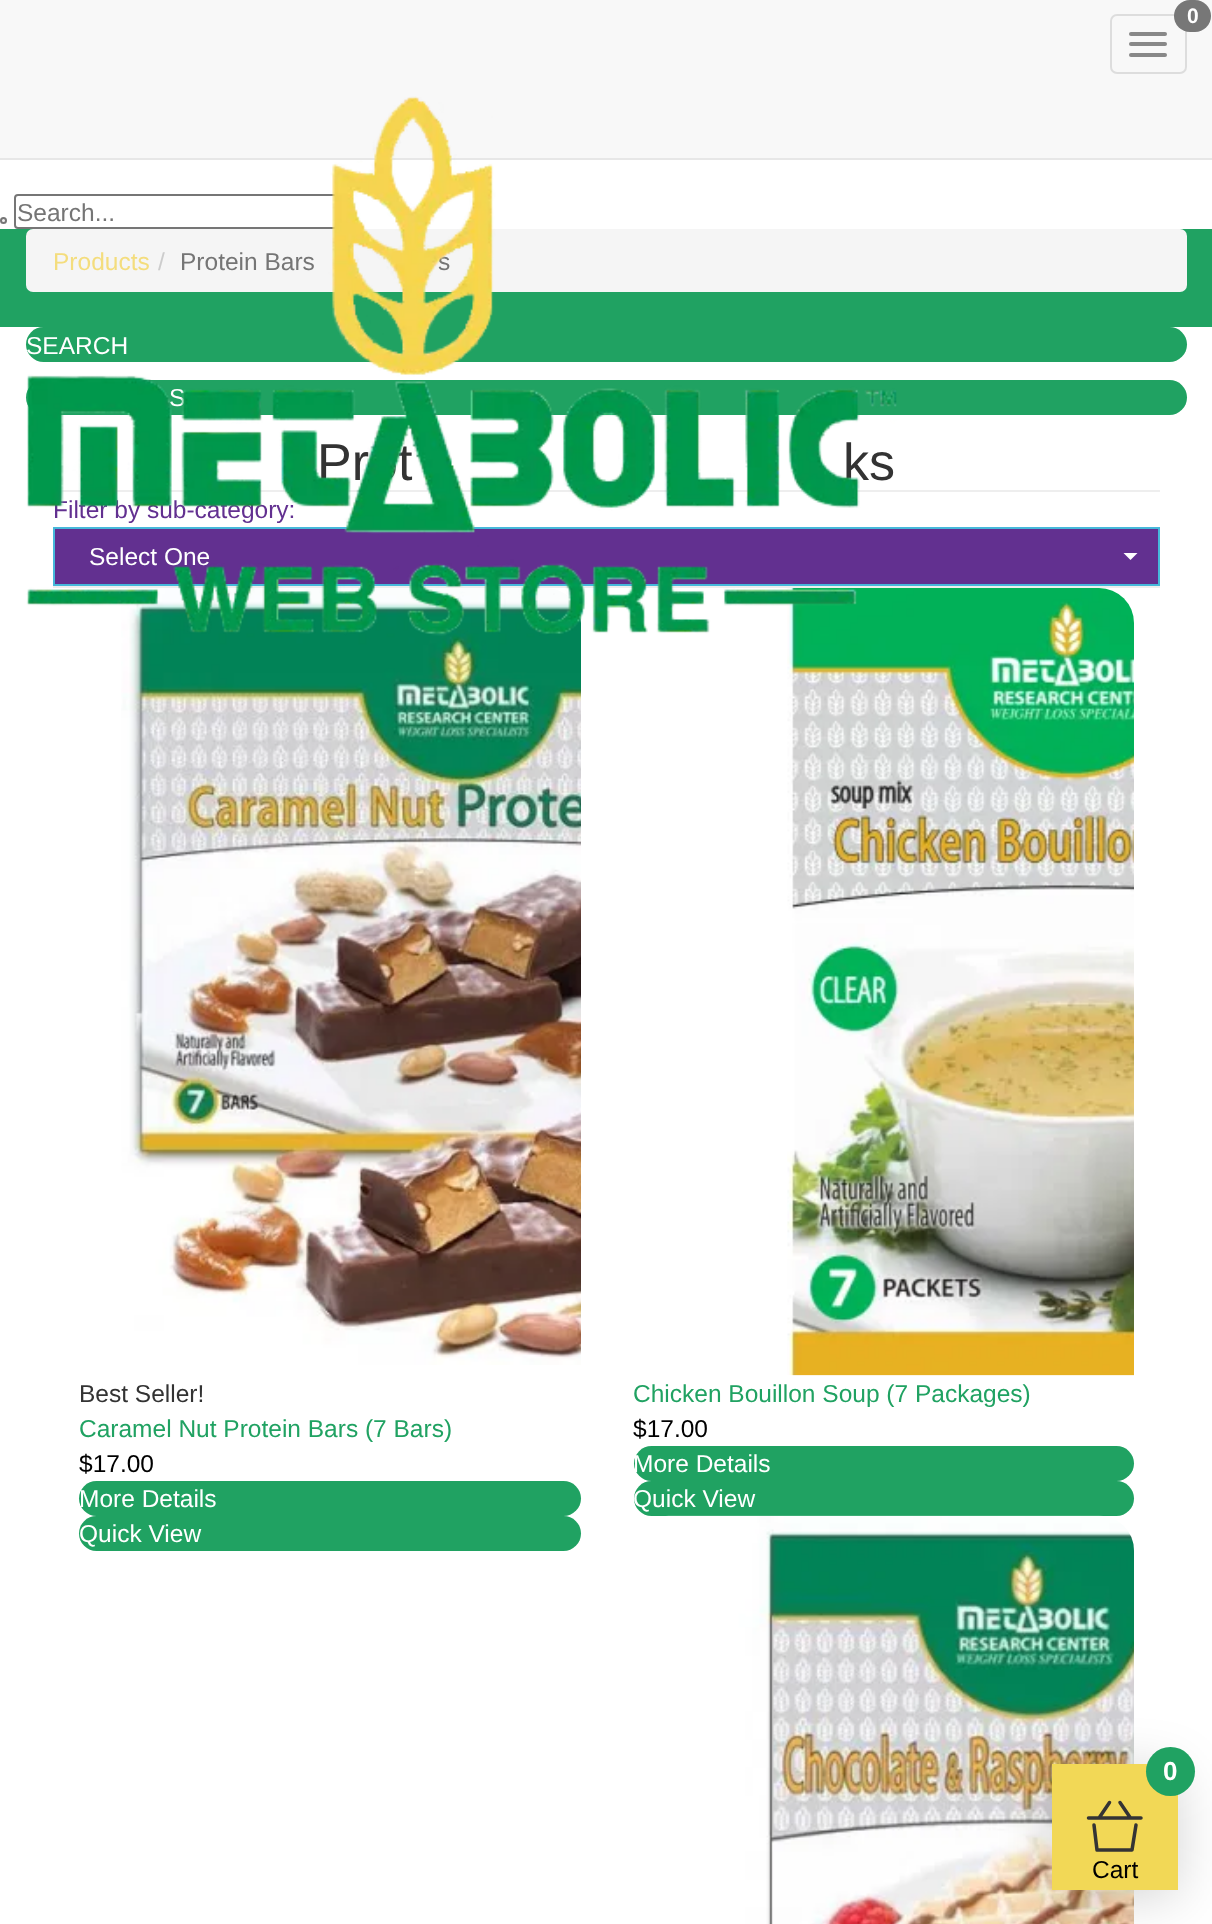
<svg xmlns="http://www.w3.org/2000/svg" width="1212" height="1924">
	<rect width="100%" height="100%" fill="#FFFFFF" />
	<rect x="0" y="0" width="1212" height="158" fill="#F8F8F8" />
	<rect x="0" y="158" width="1212" height="2" fill="#E7E7E7" />
	<rect x="1111" y="15" width="75" height="58" rx="6" fill="none" stroke="#DDDDDD" stroke-width="2" />
	<rect x="1129" y="32" width="38" height="4" rx="2" fill="#888888" />
	<rect x="1129" y="42" width="38" height="4" rx="2" fill="#888888" />
	<rect x="1129" y="53" width="38" height="4" rx="2" fill="#888888" />
	<rect x="1174" y="0" width="37" height="32" rx="16" fill="#777777" />
	<text x="1187" y="23" font-family="Liberation Sans" font-size="21" font-weight="700" fill="#FFFFFF">0</text>
	<rect x="15" y="195" width="322" height="33" rx="3" fill="none" stroke="#767676" stroke-width="2" />
	<text x="17" y="221" font-family="Liberation Sans" font-size="24.5" fill="#757575">Search...</text>
	<rect x="0" y="229" width="1212" height="98" fill="#20A262" />
	<rect x="26" y="229" width="1161" height="63" rx="7" fill="#F5F5F5" />
	<text x="53" y="270" font-family="Liberation Sans" font-size="24.5" fill="#F4DD7D">Products</text>
	<text x="158" y="270" font-family="Liberation Sans" font-size="24.5" fill="#CCCCCC">/</text>
	<g font-family="Liberation Sans" font-size="24.5" fill="#757575">
		<text x="180" y="270">Protein Bars</text>
		<text x="438" y="270">s</text>
	</g>
	<rect x="26" y="327" width="1161" height="35" rx="17.5" fill="#20A262" />
	<text x="26" y="354" font-family="Liberation Sans" font-size="24.5" fill="#FFFFFF">SEARCH</text>
	<rect x="26" y="380" width="1161" height="35" rx="17.5" fill="#20A262" />
	<text x="169" y="406" font-family="Liberation Sans" font-size="24.5" fill="#FFFFFF">S</text>
	<g font-family="Liberation Sans" font-size="52" fill="#333333">
		<text x="317" y="480">Prot</text>
		<text x="843" y="480">ks</text>
	</g>
	<rect x="53" y="490" width="1107" height="2" fill="#EEEEEE" />
	<text x="53" y="518" font-family="Liberation Sans" font-size="24.5" fill="#623090">Filter by sub-category:</text>
	<rect x="54" y="528" width="1105" height="57" fill="#623090" stroke="#46B8DA" stroke-width="2" />
	<text x="89" y="565" font-family="Liberation Sans" font-size="24.5" fill="#FFFFFF">Select One</text>
	<rect x="53" y="586" width="1107" height="2" fill="#EEEEEE" />
	<image x="121" y="588" width="460" height="777" href="assets/img2.png" />
	<image x="787" y="588" width="347" height="788" href="assets/img3.png" />
	<image x="26" y="96" width="871" height="540" href="assets/img1.png" />
	<circle cx="3.5" cy="220.5" r="2.5" fill="#EFEFEF" stroke="#767676" stroke-width="2" />
	<path d="M1123.5 553H1137.5L1130.5 560Z" fill="#FFFFFF" />
	<text x="79" y="1402" font-family="Liberation Sans" font-size="24.5" fill="#333333">Best Seller!</text>
	<text x="79" y="1437" font-family="Liberation Sans" font-size="24.5" fill="#20A262">Caramel Nut Protein Bars (7 Bars)</text>
	<text x="79" y="1472" font-family="Liberation Sans" font-size="24.5" fill="#000000">$17.00</text>
	<rect x="79" y="1481" width="502" height="35" rx="17.5" fill="#20A262" />
	<text x="79" y="1507" font-family="Liberation Sans" font-size="24.5" fill="#FFFFFF">More Details</text>
	<rect x="79" y="1516" width="502" height="35" rx="17.5" fill="#20A262" />
	<text x="79" y="1542" font-family="Liberation Sans" font-size="24.5" fill="#FFFFFF">Quick View</text>
	<text x="633" y="1402" font-family="Liberation Sans" font-size="24.5" fill="#20A262">Chicken Bouillon Soup (7 Packages)</text>
	<text x="633" y="1437" font-family="Liberation Sans" font-size="24.5" fill="#000000">$17.00</text>
	<rect x="634" y="1446" width="500" height="35" rx="17.5" fill="#20A262" />
	<text x="633" y="1472" font-family="Liberation Sans" font-size="24.5" fill="#FFFFFF">More Details</text>
	<rect x="634" y="1481" width="500" height="35" rx="17.5" fill="#20A262" />
	<text x="633" y="1507" font-family="Liberation Sans" font-size="24.5" fill="#FFFFFF">Quick View</text>
	<image x="666" y="1515" width="468" height="409" href="assets/img4.png" />
	<rect x="1052" y="1771" width="126" height="126" rx="11" fill="#000000" fill-opacity="0.17" filter="blur(26px)" />
	<rect x="1052" y="1764" width="126" height="126" fill="#F2D856" />
	<circle cx="1170.5" cy="1771.5" r="24.5" fill="#20A262" />
	<text x="1163" y="1780" font-family="Liberation Sans" font-size="26" font-weight="700" fill="#FFFFFF">0</text>
	<path d="M1099 1818L1109.5 1802.5M1130.5 1818L1120 1802.5M1136 1825L1132 1850H1097L1094 1825M1088.5 1818H1141" fill="none" stroke="#343434" stroke-width="3.5" stroke-linecap="round" stroke-linejoin="round" />
	<text x="1092" y="1878" font-family="Liberation Sans" font-size="24.5" fill="#000000">Cart</text>
</svg>
